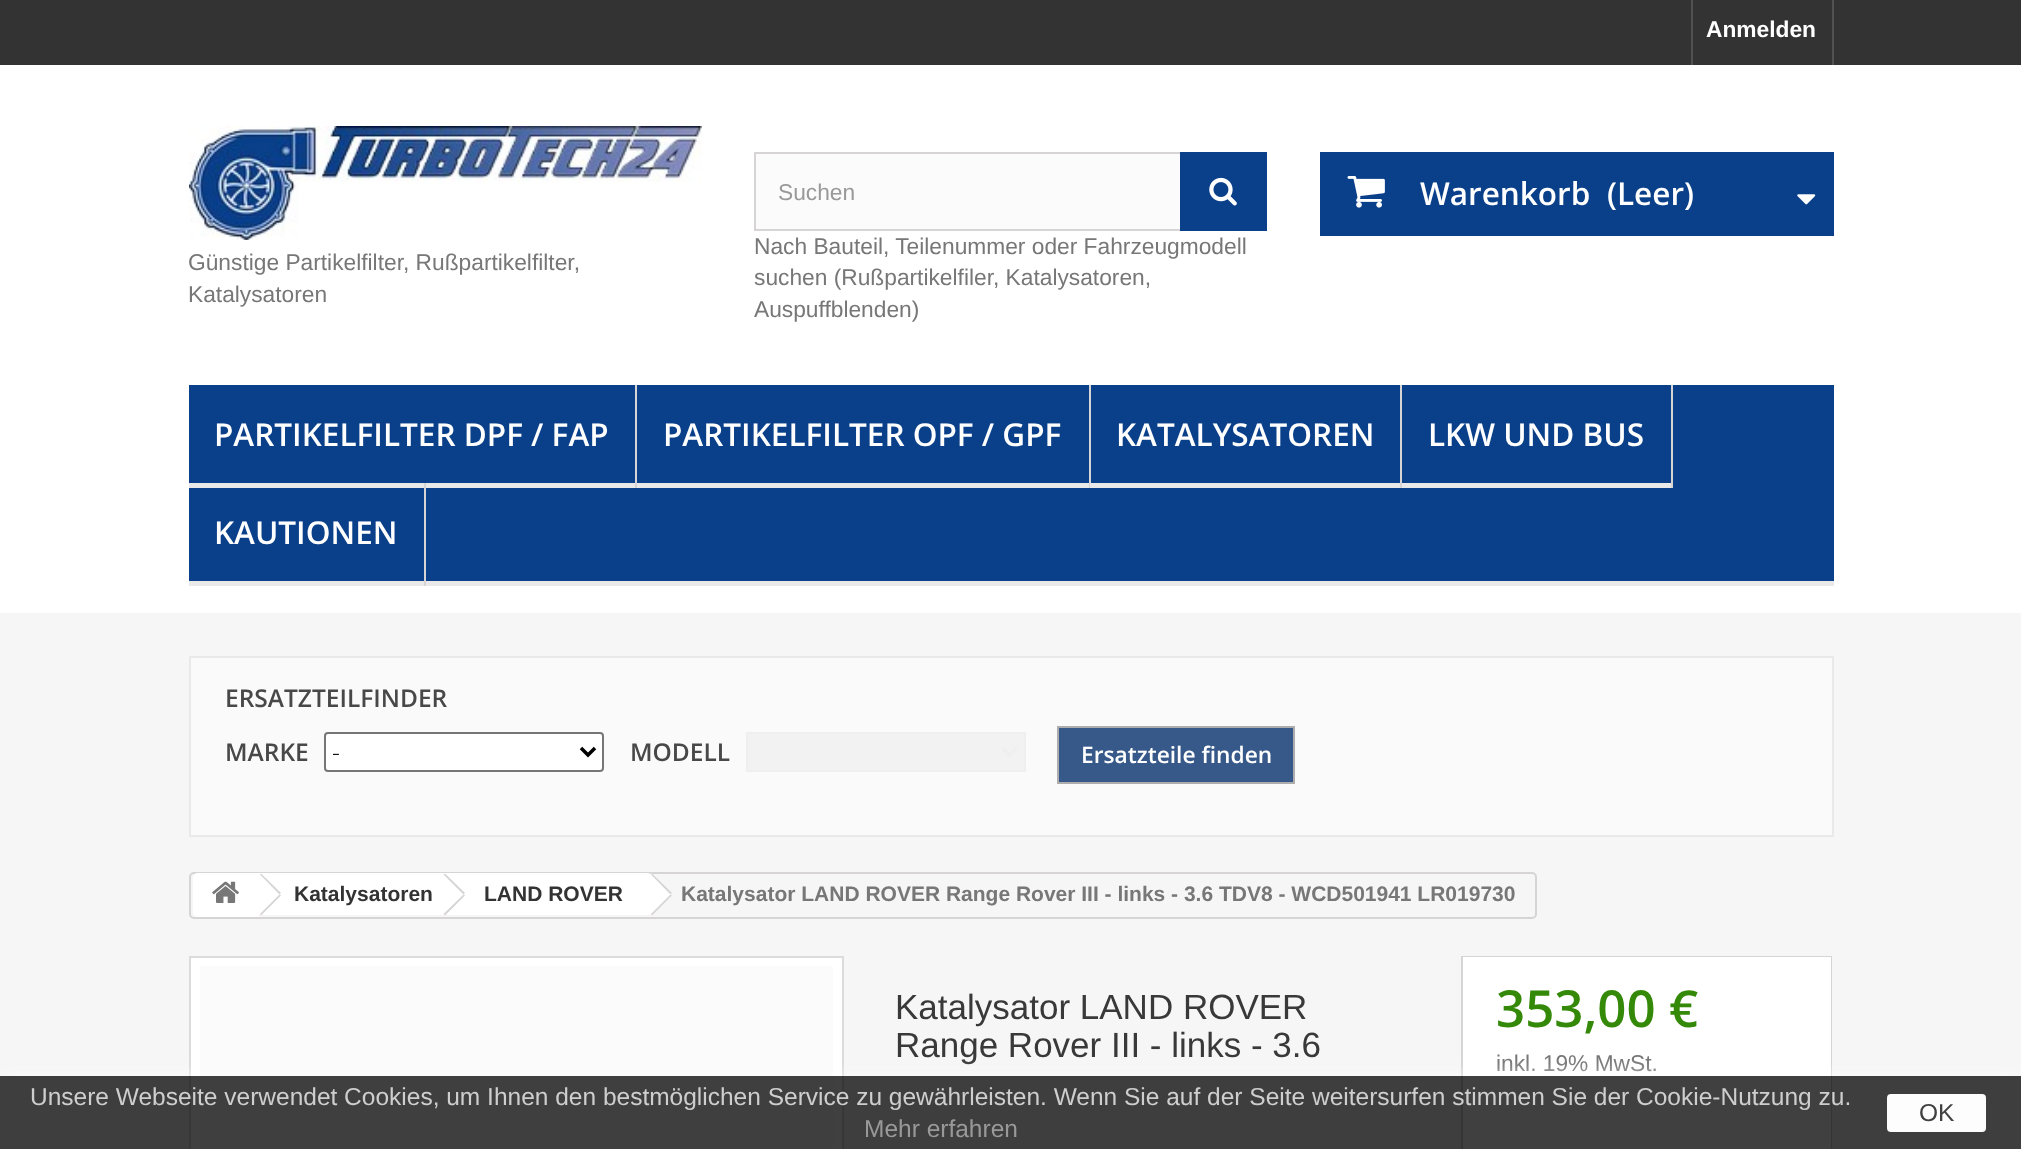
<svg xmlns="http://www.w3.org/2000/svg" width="2021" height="1149">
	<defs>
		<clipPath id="clip1"><path d="M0 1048H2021V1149H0ZM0 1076H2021V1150H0Z" clip-rule="evenodd" /></clipPath>
	</defs>
	<rect width="100%" height="100%" fill="#FFFFFF" />
	<rect x="0" y="0" width="2021" height="65" fill="#333333" />
	<rect x="1832" y="0" width="2" height="65" fill="#515151" />
	<rect x="1691" y="0" width="2" height="65" fill="#515151" />
	<text x="1706" y="37" font-family="Liberation Sans" font-size="22.75" font-weight="700" fill="#FFFFFF">Anmelden</text>
	<image x="189" y="126" width="513" height="114" href="assets/img1.png" />
	<g font-family="Liberation Sans" font-size="22.75" fill="#777777">
		<text x="188" y="270">Günstige Partikelfilter, Rußpartikelfilter,</text>
		<text x="188" y="302">Katalysatoren</text>
	</g>
	<rect x="756" y="154" width="424" height="75" fill="#FBFBFB" />
	<rect x="755" y="153" width="511" height="77" fill="none" stroke="#D6D4D4" stroke-width="2" />
	<text x="778" y="200" font-family="Liberation Sans" font-size="22.75" fill="#999999">Suchen</text>
	<rect x="1180" y="152" width="87" height="79" fill="#0A3F89" />
	<image x="1209" y="177" width="28" height="29" href="assets/img2.png" />
	<g font-family="Liberation Sans" font-size="22.75" fill="#777777">
		<text x="754" y="254">Nach Bauteil, Teilenummer oder Fahrzeugmodell</text>
		<text x="754" y="285">suchen (Rußpartikelfiler, Katalysatoren,</text>
		<text x="754" y="317">Auspuffblenden)</text>
	</g>
	<rect x="1320" y="152" width="514" height="84" fill="#0A3F89" />
	<image x="1347" y="176" width="38" height="32" href="assets/img3.png" />
	<g font-family="Open Sans" font-size="31.5" font-weight="600" fill="#FFFFFF">
		<text x="1420" y="205">Warenkorb</text>
		<text x="1607" y="205">(Leer)</text>
	</g>
	<image x="1797" y="194" width="19" height="11" href="assets/img4.png" />
	<rect x="189" y="385" width="1645" height="196" fill="#0A3F89" />
	<rect x="189" y="581" width="1645" height="5" fill="#E9E9E9" />
	<rect x="635" y="385" width="2" height="103" fill="#D6D4D4" />
	<rect x="189" y="483" width="446" height="5" fill="#E9E9E9" />
	<text x="214" y="446" font-family="Open Sans" font-size="31.5" font-weight="600" fill="#FFFFFF">PARTIKELFILTER DPF / FAP</text>
	<rect x="1089" y="385" width="2" height="103" fill="#D6D4D4" />
	<rect x="637" y="483" width="452" height="5" fill="#E9E9E9" />
	<text x="663" y="446" font-family="Open Sans" font-size="31.5" font-weight="600" fill="#FFFFFF">PARTIKELFILTER OPF / GPF</text>
	<rect x="1400" y="385" width="2" height="103" fill="#D6D4D4" />
	<rect x="1090" y="483" width="310" height="5" fill="#E9E9E9" />
	<text x="1116" y="446" font-family="Open Sans" font-size="31.5" font-weight="600" fill="#FFFFFF">KATALYSATOREN</text>
	<rect x="1671" y="385" width="2" height="103" fill="#D6D4D4" />
	<rect x="1402" y="483" width="269" height="5" fill="#E9E9E9" />
	<text x="1428" y="446" font-family="Open Sans" font-size="31.5" font-weight="600" fill="#FFFFFF">LKW UND BUS</text>
	<rect x="424" y="483" width="2" height="103" fill="#D6D4D4" />
	<text x="214" y="544" font-family="Open Sans" font-size="31.5" font-weight="600" fill="#FFFFFF">KAUTIONEN</text>
	<rect x="0" y="613" width="2021" height="536" fill="#F6F6F6" />
	<rect x="190" y="657" width="1643" height="179" fill="#FAFAFA" stroke="#E9E9E9" stroke-width="2" />
	<g font-family="Open Sans" font-size="24.5" font-weight="600" fill="#484848">
		<text x="225" y="707">ERSATZTEILFINDER</text>
		<text x="225" y="761">MARKE</text>
	</g>
	<rect x="325" y="733" width="278" height="38" rx="3" fill="#FFFFFF" stroke="#767676" stroke-width="2" />
	<path d="M581 748L588 755L595 748" fill="none" stroke="#000000" stroke-width="3.5" />
	<text x="332" y="761" font-family="Open Sans" font-size="24.5" font-weight="300" fill="#000000">-</text>
	<text x="630" y="761" font-family="Open Sans" font-size="24.5" font-weight="600" fill="#484848">MODELL</text>
	<rect x="747" y="733" width="278" height="38" fill="#F2F2F2" stroke="#EFEFEF" stroke-width="2" />
	<path d="M1002.5 748L1009.5 755L1016.5 748" fill="none" stroke="#EFEFEF" stroke-width="3.5" />
	<rect x="1058" y="727" width="236" height="56" fill="#375989" stroke="#ADADAD" stroke-width="2" />
	<text x="1081" y="763" font-family="Open Sans" font-size="22.75" font-weight="600" fill="#FFFFFF">Ersatzteile finden</text>
	<rect x="190" y="873" width="1346" height="45" rx="4" fill="none" stroke="#D6D4D4" stroke-width="2" />
	<path d="M198 873H259V917H198C195 917 193 915 193 912V878C193 875 195 873 198 873Z" fill="#FFFFFF" />
	<image x="212" y="881" width="27" height="22" href="assets/img5.png" />
	<rect x="259" y="873" width="187" height="42" fill="#FFFFFF" />
	<path d="M261 873.5L281 893L279.5 894.5L260 874.5Z" fill="#D6D4D4" />
	<path d="M279.5 894.5L281 895.5L261 915.5L260 914Z" fill="#D6D4D4" />
	<text x="294" y="901" font-family="Liberation Sans" font-size="21" font-weight="700" fill="#333333">Katalysatoren</text>
	<path d="M464 875L481 892C482 893 482 895 481 897L464 914C462 915 460 915 459 914L441 897C440 895 440 893 441 892L459 875C460 873 462 873 464 875Z" fill="#FFFFFF" />
	<rect x="446" y="873" width="203" height="42" fill="#FFFFFF" />
	<path d="M445 873.5L465 893L463.5 894.5L443.5 874.5Z" fill="#D6D4D4" />
	<path d="M463.5 894.5L465 895.5L445 915.5L443.5 914Z" fill="#D6D4D4" />
	<text x="484" y="901" font-family="Liberation Sans" font-size="21" font-weight="700" fill="#333333">LAND ROVER</text>
	<path d="M653 875L671 892C672 893 672 895 671 897L653 914C652 915 650 915 648 914L631 897C630 895 630 893 631 892L648 875C650 873 652 873 653 875Z" fill="#FFFFFF" />
	<path d="M652 873.5L672 893L670.5 894.5L651 874.5Z" fill="#D6D4D4" />
	<path d="M670.5 894.5L672 895.5L652 915.5L651 914Z" fill="#D6D4D4" />
	<text x="681" y="901" font-family="Liberation Sans" font-size="21" font-weight="700" fill="#777777">Katalysator LAND ROVER Range Rover III - links - 3.6 TDV8 - WCD501941 LR019730</text>
	<rect x="190" y="957" width="653" height="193" fill="#FFFFFF" stroke="#DBDBDB" stroke-width="2" />
	<rect x="200" y="966" width="633" height="183" fill="#FBFBFB" />
	<g font-family="Liberation Sans" font-size="35" fill="#3A3939">
		<text x="895" y="1019">Katalysator LAND ROVER</text>
		<text x="895" y="1057">Range Rover III - links - 3.6</text>
	</g>
	<rect x="1462" y="957" width="369" height="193" fill="none" stroke="#D6D4D4" stroke-width="2" />
	<rect x="1463" y="957" width="368" height="192" fill="#FFFFFF" />
	<text x="1496" y="1027" font-family="Open Sans" font-size="51" font-weight="600" fill="#348908">353,00 €</text>
	<text x="1496" y="1071" font-family="Liberation Sans" font-size="22.75" fill="#777777">inkl. 19% MwSt.</text>
	<g clip-path="url(#clip1)">
		<rect x="0" y="1076" width="2021" height="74" fill="#FFFFFF" fill-opacity="0.75" filter="blur(9px)" />
	</g>
	<rect x="0" y="1076" width="2021" height="73" fill="#000000" fill-opacity="0.75" />
	<text x="30" y="1105" font-family="Liberation Sans" font-size="24.5" fill="#CECECE">Unsere Webseite verwendet Cookies, um Ihnen den bestmöglichen Service zu gewährleisten. Wenn Sie auf der Seite weitersurfen stimmen Sie der Cookie-Nutzung zu.</text>
	<text x="864" y="1137" font-family="Liberation Sans" font-size="24.5" fill="#999999">Mehr erfahren</text>
	<rect x="1887" y="1094" width="99" height="38" rx="4" fill="#FDFDFD" />
	<text x="1919" y="1121" font-family="Liberation Sans" font-size="24.5" fill="#414141">OK</text>
</svg>
